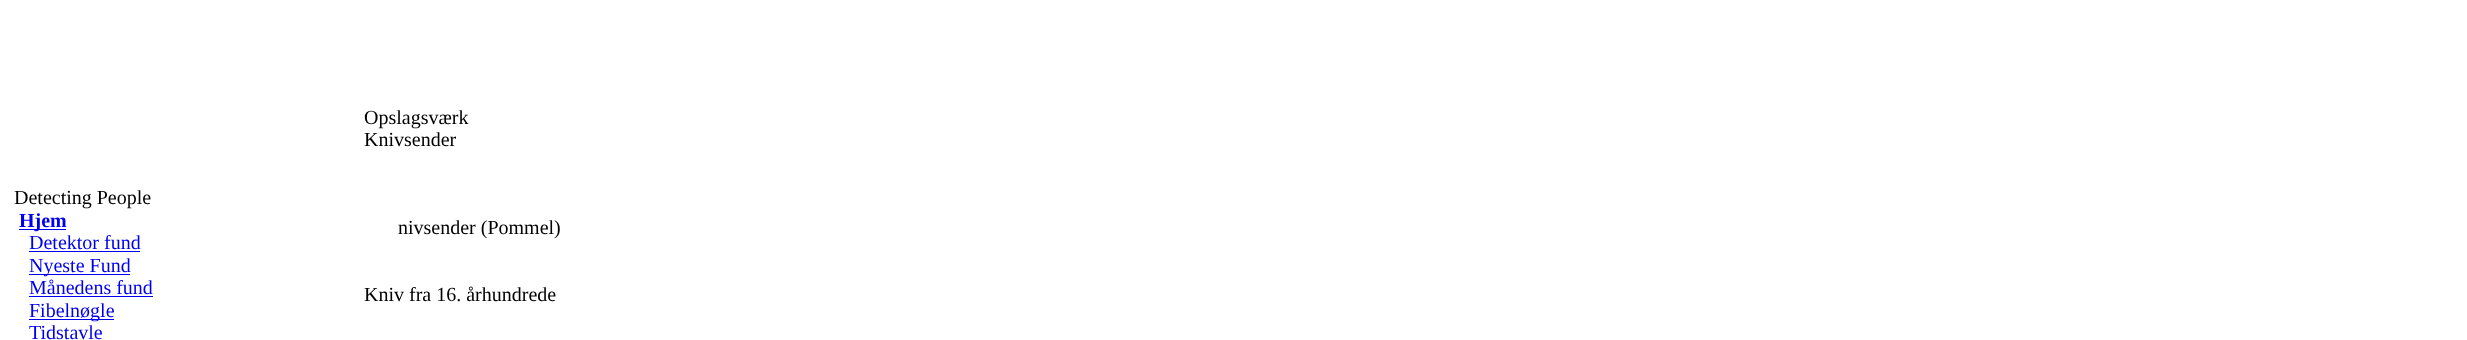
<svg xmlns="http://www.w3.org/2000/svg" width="2467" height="340">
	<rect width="100%" height="100%" fill="#FFFFFF" />
	<text x="14" y="204" font-family="Liberation Serif" font-size="20" fill="#000000">Detecting People</text>
	<rect x="19" y="229" width="47" height="1" fill="#0000EE" />
	<text x="19" y="227" font-family="Liberation Serif" font-size="20" font-weight="700" fill="#0000EE">Hjem</text>
	<text x="29" y="249" font-family="Liberation Serif" font-size="20" fill="#0000EE">Detektor fund</text>
	<rect x="29" y="251" width="111" height="1" fill="#0000EE" />
	<rect x="29" y="274" width="101" height="1" fill="#0000EE" />
	<g font-family="Liberation Serif" font-size="20" fill="#0000EE">
		<text x="29" y="272">Nyeste Fund</text>
		<text x="29" y="294">Månedens fund</text>
	</g>
	<rect x="29" y="296" width="124" height="1" fill="#0000EE" />
	<rect x="29" y="319" width="85" height="1" fill="#0000EE" />
	<g font-family="Liberation Serif" font-size="20" fill="#0000EE">
		<text x="29" y="317">Fibelnøgle</text>
		<text x="29" y="339">Tidstavle</text>
	</g>
	<g font-family="Liberation Serif" font-size="20" fill="#000000">
		<text x="364" y="124">Opslagsværk</text>
		<text x="364" y="146">Knivsender</text>
		<text x="398" y="234">nivsender (Pommel)</text>
		<text x="364" y="301">Kniv fra 16. århundrede</text>
	</g>
</svg>
